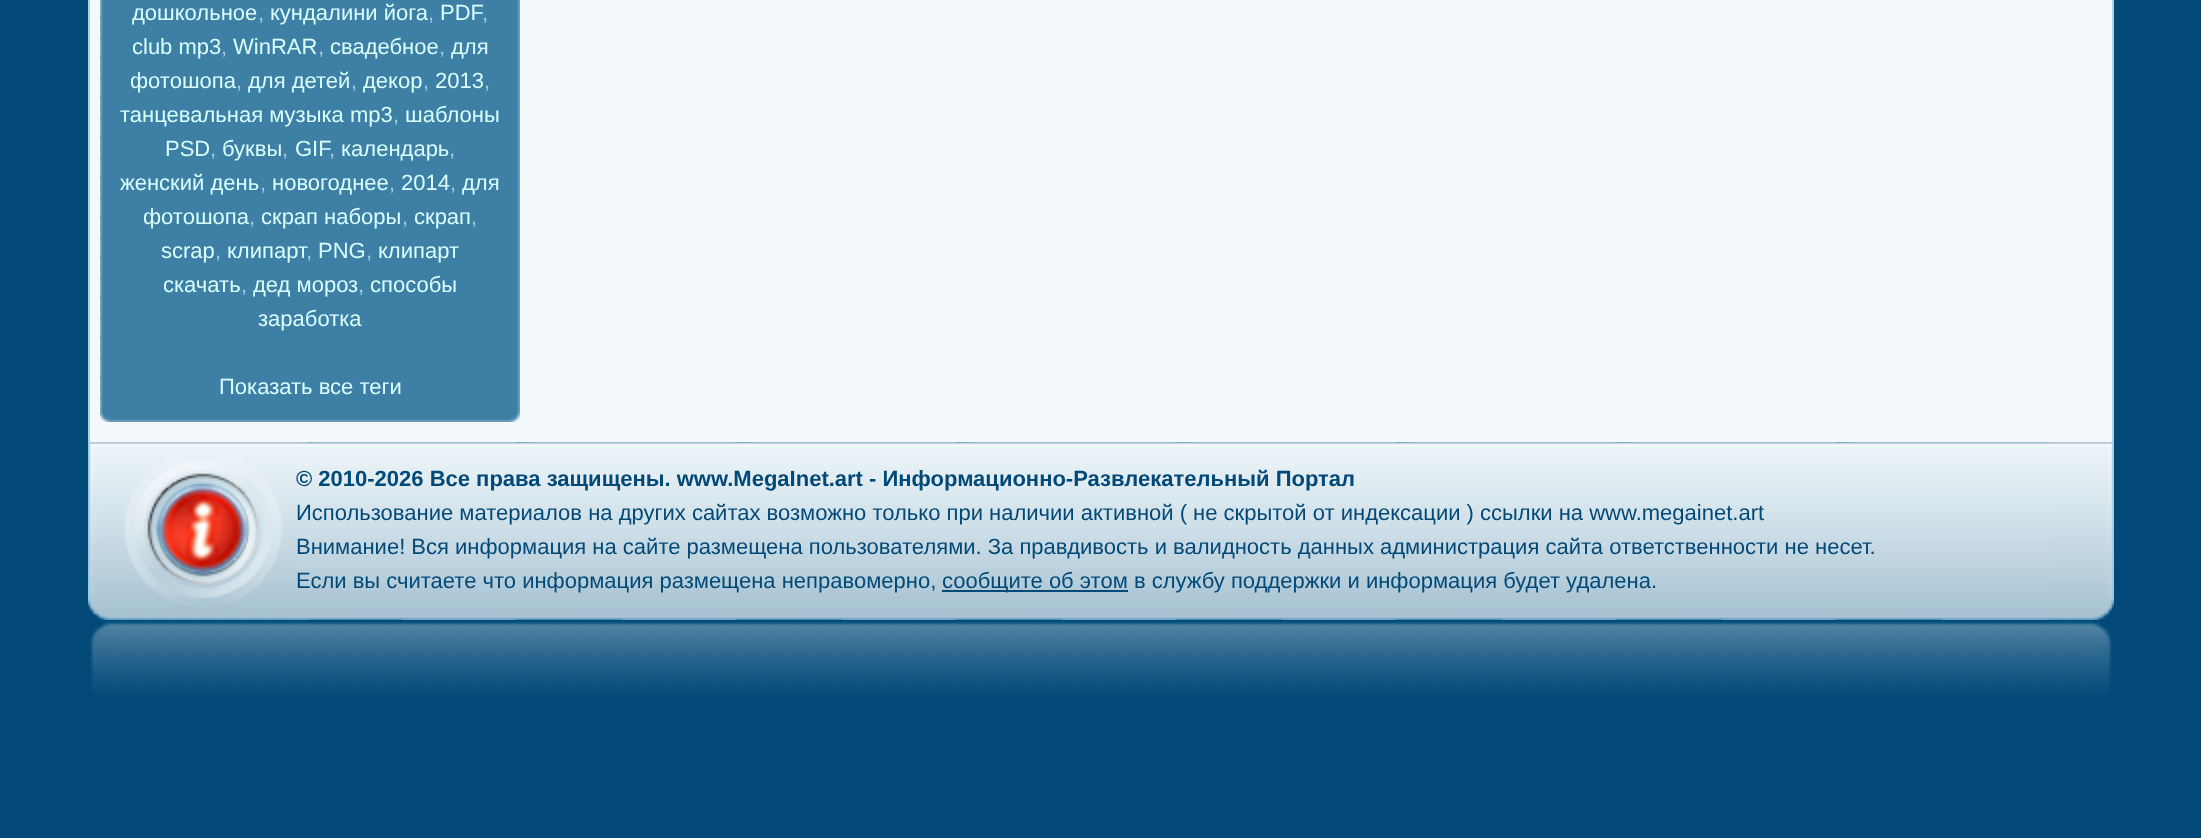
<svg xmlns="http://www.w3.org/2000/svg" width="2201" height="838">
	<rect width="100%" height="100%" fill="#024978" />
	<rect x="90" y="0" width="2022" height="442" fill="#F4F9FC" />
	<rect x="88" y="0" width="2" height="442" fill="#A9D5EC" />
	<rect x="2112" y="0" width="2" height="442" fill="#A9D5EC" />
	<image x="100" y="0" width="420" height="412" href="assets/img1.png" />
	<image x="100" y="412" width="420" height="10" href="assets/img2.png" />
	<text x="132" y="20" font-family="Liberation Sans" font-size="22" fill="#D9FFFF">дошкольное</text>
	<text x="258" y="20" font-family="Liberation Sans" font-size="22" fill="#A3CBDF">,</text>
	<text x="270" y="20" font-family="Liberation Sans" font-size="22" fill="#D9FFFF">кундалини йога</text>
	<text x="428" y="20" font-family="Liberation Sans" font-size="22" fill="#A3CBDF">,</text>
	<text x="440" y="20" font-family="Liberation Sans" font-size="22" fill="#D9FFFF">PDF</text>
	<text x="482" y="20" font-family="Liberation Sans" font-size="22" fill="#A3CBDF">,</text>
	<text x="132" y="54" font-family="Liberation Sans" font-size="22" fill="#D9FFFF">club mp3</text>
	<text x="221" y="54" font-family="Liberation Sans" font-size="22" fill="#A3CBDF">,</text>
	<text x="233" y="54" font-family="Liberation Sans" font-size="22" fill="#D9FFFF">WinRAR</text>
	<text x="318" y="54" font-family="Liberation Sans" font-size="22" fill="#A3CBDF">,</text>
	<text x="330" y="54" font-family="Liberation Sans" font-size="22" fill="#D9FFFF">свадебное</text>
	<text x="439" y="54" font-family="Liberation Sans" font-size="22" fill="#A3CBDF">,</text>
	<g font-family="Liberation Sans" font-size="22" fill="#D9FFFF">
		<text x="451" y="54">для</text>
		<text x="130" y="88">фотошопа</text>
	</g>
	<text x="236" y="88" font-family="Liberation Sans" font-size="22" fill="#A3CBDF">,</text>
	<text x="248" y="88" font-family="Liberation Sans" font-size="22" fill="#D9FFFF">для детей</text>
	<text x="351" y="88" font-family="Liberation Sans" font-size="22" fill="#A3CBDF">,</text>
	<text x="363" y="88" font-family="Liberation Sans" font-size="22" fill="#D9FFFF">декор</text>
	<text x="423" y="88" font-family="Liberation Sans" font-size="22" fill="#A3CBDF">,</text>
	<text x="435" y="88" font-family="Liberation Sans" font-size="22" fill="#D9FFFF">2013</text>
	<text x="484" y="88" font-family="Liberation Sans" font-size="22" fill="#A3CBDF">,</text>
	<text x="120" y="122" font-family="Liberation Sans" font-size="22" fill="#D9FFFF">танцевальная музыка mp3</text>
	<text x="393" y="122" font-family="Liberation Sans" font-size="22" fill="#A3CBDF">,</text>
	<g font-family="Liberation Sans" font-size="22" fill="#D9FFFF">
		<text x="405" y="122">шаблоны</text>
		<text x="165" y="156">PSD</text>
	</g>
	<text x="210" y="156" font-family="Liberation Sans" font-size="22" fill="#A3CBDF">,</text>
	<text x="222" y="156" font-family="Liberation Sans" font-size="22" fill="#D9FFFF">буквы</text>
	<text x="282" y="156" font-family="Liberation Sans" font-size="22" fill="#A3CBDF">,</text>
	<text x="295" y="156" font-family="Liberation Sans" font-size="22" fill="#D9FFFF">GIF</text>
	<text x="329" y="156" font-family="Liberation Sans" font-size="22" fill="#A3CBDF">,</text>
	<text x="341" y="156" font-family="Liberation Sans" font-size="22" fill="#D9FFFF">календарь</text>
	<text x="449" y="156" font-family="Liberation Sans" font-size="22" fill="#A3CBDF">,</text>
	<text x="120" y="190" font-family="Liberation Sans" font-size="22" fill="#D9FFFF">женский день</text>
	<text x="260" y="190" font-family="Liberation Sans" font-size="22" fill="#A3CBDF">,</text>
	<text x="272" y="190" font-family="Liberation Sans" font-size="22" fill="#D9FFFF">новогоднее</text>
	<text x="389" y="190" font-family="Liberation Sans" font-size="22" fill="#A3CBDF">,</text>
	<text x="401" y="190" font-family="Liberation Sans" font-size="22" fill="#D9FFFF">2014</text>
	<text x="450" y="190" font-family="Liberation Sans" font-size="22" fill="#A3CBDF">,</text>
	<g font-family="Liberation Sans" font-size="22" fill="#D9FFFF">
		<text x="462" y="190">для</text>
		<text x="143" y="224">фотошопа</text>
	</g>
	<text x="249" y="224" font-family="Liberation Sans" font-size="22" fill="#A3CBDF">,</text>
	<text x="261" y="224" font-family="Liberation Sans" font-size="22" fill="#D9FFFF">скрап наборы</text>
	<text x="402" y="224" font-family="Liberation Sans" font-size="22" fill="#A3CBDF">,</text>
	<text x="414" y="224" font-family="Liberation Sans" font-size="22" fill="#D9FFFF">скрап</text>
	<text x="471" y="224" font-family="Liberation Sans" font-size="22" fill="#A3CBDF">,</text>
	<text x="161" y="258" font-family="Liberation Sans" font-size="22" fill="#D9FFFF">scrap</text>
	<text x="215" y="258" font-family="Liberation Sans" font-size="22" fill="#A3CBDF">,</text>
	<text x="227" y="258" font-family="Liberation Sans" font-size="22" fill="#D9FFFF">клипарт</text>
	<text x="306" y="258" font-family="Liberation Sans" font-size="22" fill="#A3CBDF">,</text>
	<text x="318" y="258" font-family="Liberation Sans" font-size="22" fill="#D9FFFF">PNG</text>
	<text x="366" y="258" font-family="Liberation Sans" font-size="22" fill="#A3CBDF">,</text>
	<g font-family="Liberation Sans" font-size="22" fill="#D9FFFF">
		<text x="378" y="258">клипарт</text>
		<text x="163" y="292">скачать</text>
	</g>
	<text x="241" y="292" font-family="Liberation Sans" font-size="22" fill="#A3CBDF">,</text>
	<text x="253" y="292" font-family="Liberation Sans" font-size="22" fill="#D9FFFF">дед мороз</text>
	<text x="358" y="292" font-family="Liberation Sans" font-size="22" fill="#A3CBDF">,</text>
	<g font-family="Liberation Sans" font-size="22" fill="#D9FFFF">
		<text x="370" y="292">способы</text>
		<text x="258" y="326">заработка</text>
		<text x="219" y="394">Показать все теги</text>
	</g>
	<image x="2050" y="442" width="64" height="178" href="assets/img3.png" />
	<image x="88" y="442" width="220" height="178" href="assets/img4.png" />
	<image x="296" y="442" width="1754" height="178" href="assets/img5.png" />
	<text x="296" y="486" font-family="Liberation Sans" font-size="22" font-weight="700" fill="#024978">© 2010-2026 Все права защищены. www.MegaInet.art - Информационно-Развлекательный Портал</text>
	<g font-family="Liberation Sans" font-size="22" fill="#024978">
		<text x="296" y="520">Использование материалов на других сайтах возможно только при наличии активной ( не скрытой от индексации ) ссылки на www.megainet.art</text>
		<text x="296" y="554">Внимание! Вся информация на сайте размещена пользователями. За правдивость и валидность данных администрация сайта ответственности не несет.</text>
		<text x="296" y="588">Если вы считаете что информация размещена неправомерно,</text>
	</g>
	<rect x="942" y="590" width="186" height="2" fill="#024978" />
	<text x="942" y="588" font-family="Liberation Sans" font-size="22" fill="#024978">сообщите об этом в службу поддержки и информация будет удалена.</text>
	<image x="2090" y="621" width="22" height="74" href="assets/img6.png" />
	<image x="90" y="621" width="22" height="74" href="assets/img7.png" />
	<image x="112" y="621" width="1978" height="74" href="assets/img8.png" />
</svg>
